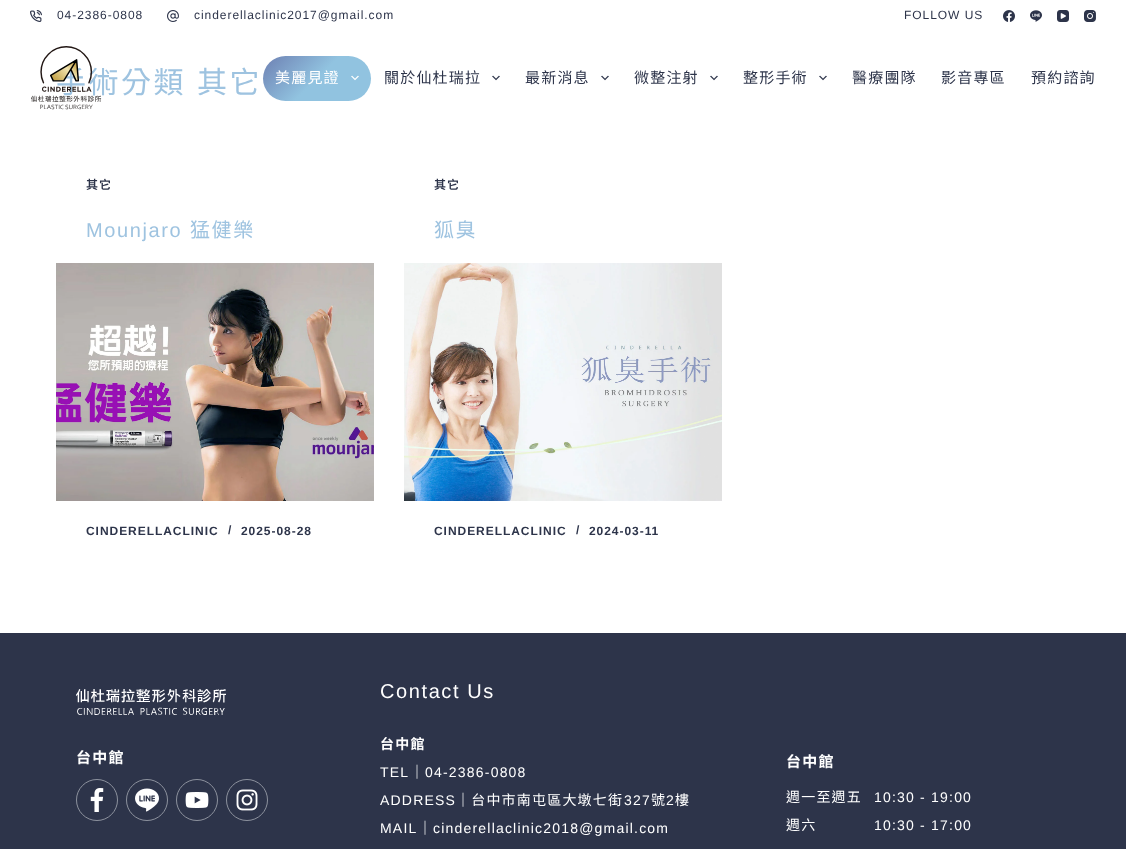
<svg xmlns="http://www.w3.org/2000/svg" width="1126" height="849">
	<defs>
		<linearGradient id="g1" gradientUnits="userSpaceOnUse" x1="279" y1="40" x2="355" y2="117"><stop offset="0" stop-color="#36D1DC" /><stop offset="0.04" stop-color="#7085B6" /><stop offset="0.5" stop-color="#91C3E0" /><stop offset="1" stop-color="#91C3E0" /></linearGradient>
	</defs>
	<rect width="100%" height="100%" fill="#FFFFFF" />
	<image x="30" y="10" width="12" height="12" href="assets/img1.png" />
	<text x="57" y="19" font-family="Liberation Sans" font-size="12" letter-spacing="0.95" fill="#2D344A">04-2386-0808</text>
	<image x="167" y="10" width="12" height="12" href="assets/img2.png" />
	<g font-family="Liberation Sans" font-size="12" letter-spacing="0.95" fill="#2D344A">
		<text x="194" y="19">cinderellaclinic2017@gmail.com</text>
		<text x="904" y="19">FOLLOW US</text>
	</g>
	<image x="1003" y="10" width="12" height="12" href="assets/img3.png" />
	<image x="1030" y="10" width="12" height="12" href="assets/img4.png" />
	<image x="1057" y="10" width="12" height="12" href="assets/img5.png" />
	<image x="1084" y="10" width="12" height="12" href="assets/img6.png" />
	<text x="56" y="93" font-family="Noto Sans CJK TC" font-size="30" letter-spacing="2.5" fill="#9EC3E0">手術分類</text>
	<image x="31" y="46" width="71" height="64" href="assets/img7.png" />
	<rect x="263" y="56" width="108" height="45" rx="22.5" fill="url(#g1)" />
	<text x="275" y="83" font-family="Noto Sans CJK TC" font-size="15" letter-spacing="1.2" fill="#FFFFFF">美麗見證</text>
	<image x="351" y="75" width="8" height="6" href="assets/img8.png" />
	<text x="384" y="83" font-family="Noto Sans CJK TC" font-size="15" letter-spacing="1.2" fill="#2D344A">關於仙杜瑞拉</text>
	<image x="492" y="75" width="8" height="6" href="assets/img9.png" />
	<text x="525" y="83" font-family="Noto Sans CJK TC" font-size="15" letter-spacing="1.2" fill="#2D344A">最新消息</text>
	<image x="601" y="75" width="8" height="6" href="assets/img9.png" />
	<text x="634" y="83" font-family="Noto Sans CJK TC" font-size="15" letter-spacing="1.2" fill="#2D344A">微整注射</text>
	<image x="710" y="75" width="8" height="6" href="assets/img9.png" />
	<text x="743" y="83" font-family="Noto Sans CJK TC" font-size="15" letter-spacing="1.2" fill="#2D344A">整形手術</text>
	<image x="819" y="75" width="8" height="6" href="assets/img9.png" />
	<g font-family="Noto Sans CJK TC" font-size="15" letter-spacing="1.2" fill="#2D344A">
		<text x="852" y="83">醫療團隊</text>
		<text x="941" y="83">影音專區</text>
		<text x="1031" y="83">預約諮詢</text>
	</g>
	<text x="197" y="93" font-family="Noto Sans CJK TC" font-size="30" letter-spacing="2.5" fill="#9EC3E0">其它</text>
	<text x="86" y="189" font-family="Noto Sans TC" font-size="12" font-weight="600" letter-spacing="0.95" fill="#2D344A">其它</text>
	<text x="86" y="237" font-family="Liberation Sans" font-size="20" letter-spacing="1.6" fill="#9EC3E0">Mounjaro</text>
	<text x="190" y="237" font-family="Noto Sans CJK TC" font-size="20" letter-spacing="1.6" fill="#9EC3E0">猛健樂</text>
	<image x="56" y="263" width="318" height="238" href="assets/img10.png" />
	<g font-family="Liberation Sans" font-size="12" font-weight="700" letter-spacing="0.95" fill="#2D344A">
		<text x="86" y="535">CINDERELLACLINIC</text>
		<text x="228" y="534">/</text>
		<text x="241" y="535">2025-08-28</text>
	</g>
	<text x="434" y="189" font-family="Noto Sans TC" font-size="12" font-weight="600" letter-spacing="0.95" fill="#2D344A">其它</text>
	<text x="434" y="237" font-family="Noto Sans CJK TC" font-size="20" letter-spacing="1.6" fill="#9EC3E0">狐臭</text>
	<image x="404" y="263" width="318" height="238" href="assets/img11.png" />
	<g font-family="Liberation Sans" font-size="12" font-weight="700" letter-spacing="0.95" fill="#2D344A">
		<text x="434" y="535">CINDERELLACLINIC</text>
		<text x="576" y="534">/</text>
		<text x="589" y="535">2024-03-11</text>
	</g>
	<rect x="0" y="633" width="1126" height="216" fill="#2D344A" />
	<image x="76" y="689" width="150" height="26" href="assets/img12.png" />
	<text x="76" y="763" font-family="Noto Sans TC" font-size="15" font-weight="700" letter-spacing="1.2" fill="#FFFFFF">台中館</text>
	<circle cx="97" cy="800" r="20.5" fill="none" stroke="#8D929E" />
	<image x="90" y="788" width="14" height="24" href="assets/img13.png" />
	<circle cx="147" cy="800" r="20.5" fill="none" stroke="#8D929E" />
	<image x="135" y="788" width="24" height="24" href="assets/img14.png" />
	<circle cx="197" cy="800" r="20.5" fill="none" stroke="#8D929E" />
	<image x="185" y="792" width="24" height="16" href="assets/img15.png" />
	<circle cx="247" cy="800" r="20.5" fill="none" stroke="#8D929E" />
	<image x="236" y="789" width="22" height="22" href="assets/img16.png" />
	<text x="380" y="698" font-family="Liberation Sans" font-size="20" letter-spacing="1.6" fill="#FFFFFF">Contact Us</text>
	<text x="380" y="749" font-family="Noto Sans TC" font-size="14" font-weight="700" letter-spacing="1.2" fill="#FFFFFF">台中館</text>
	<text x="380" y="777" font-family="Liberation Sans" font-size="14" letter-spacing="1.2" fill="#FFFFFF">TEL</text>
	<text x="410" y="777" font-family="Noto Sans CJK TC" font-size="14" letter-spacing="1.2" fill="#FFFFFF">｜</text>
	<g font-family="Liberation Sans" font-size="14" letter-spacing="1.2" fill="#FFFFFF">
		<text x="425" y="777">04-2386-0808</text>
		<text x="380" y="805">ADDRESS</text>
	</g>
	<text x="456" y="805" font-family="Noto Sans CJK TC" font-size="14" letter-spacing="1.2" fill="#FFFFFF">｜台中市南屯區大墩七街</text>
	<text x="624" y="805" font-family="Liberation Sans" font-size="14" letter-spacing="1.2" fill="#FFFFFF">327</text>
	<text x="651" y="805" font-family="Noto Sans CJK TC" font-size="14" letter-spacing="1.2" fill="#FFFFFF">號</text>
	<text x="666" y="805" font-family="Liberation Sans" font-size="14" letter-spacing="1.2" fill="#FFFFFF">2</text>
	<text x="675" y="805" font-family="Noto Sans CJK TC" font-size="14" letter-spacing="1.2" fill="#FFFFFF">樓</text>
	<text x="380" y="833" font-family="Liberation Sans" font-size="14" letter-spacing="1.2" fill="#FFFFFF">MAIL</text>
	<text x="418" y="833" font-family="Noto Sans CJK TC" font-size="14" letter-spacing="1.2" fill="#FFFFFF">｜</text>
	<text x="433" y="833" font-family="Liberation Sans" font-size="14" letter-spacing="1.2" fill="#FFFFFF">cinderellaclinic2018@gmail.com</text>
	<text x="786" y="767" font-family="Noto Sans TC" font-size="15" font-weight="700" letter-spacing="1.2" fill="#FFFFFF">台中館</text>
	<g font-family="Noto Sans CJK TC" font-size="14" letter-spacing="1.2" fill="#FFFFFF">
		<text x="786" y="802">週一至週五</text>
		<text x="786" y="830">週六</text>
	</g>
	<g font-family="Liberation Sans" font-size="14" letter-spacing="1.2" fill="#FFFFFF">
		<text x="874" y="802">10:30 - 19:00</text>
		<text x="874" y="830">10:30 - 17:00</text>
	</g>
</svg>
